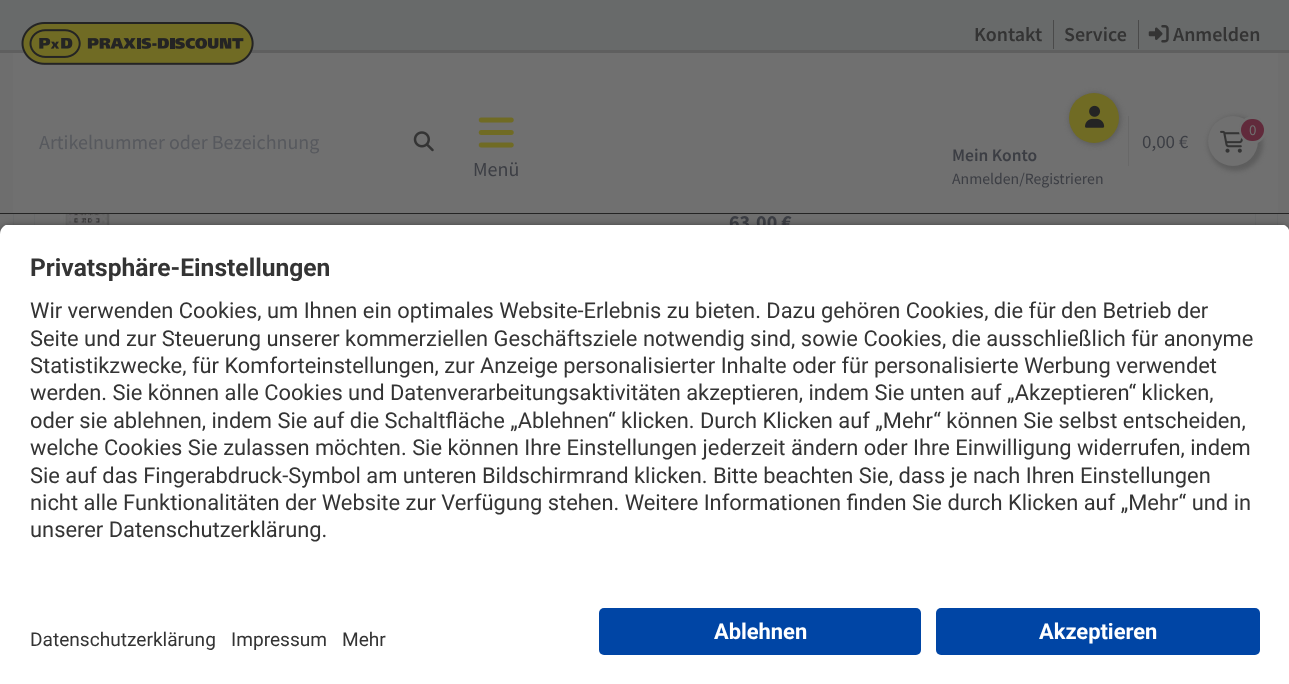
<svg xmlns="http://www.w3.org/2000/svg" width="1289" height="684">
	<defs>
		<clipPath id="clip1"><path d="M10 224H1280C1285.5 224 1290 228.5 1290 234V598H0V234C0 228.5 4.5 224 10 224Z" /></clipPath>
	</defs>
	<rect width="100%" height="100%" fill="#6E6E6E" />
	<rect x="13.5" y="-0.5" width="1264" height="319" fill="none" stroke="#696A6B" />
	<rect x="34.5" y="153.5" width="1221" height="144" fill="none" stroke="#696A6B" />
	<rect x="13" y="53" width="1265" height="160" fill="#707070" />
	<rect x="0" y="0" width="1289" height="50" fill="#686A6A" />
	<rect x="0" y="50" width="1289" height="3" fill="#5F5F5F" />
	<image x="21" y="22" width="233" height="43" href="assets/img1.png" />
	<rect x="1053" y="20" width="1" height="29" fill="#4A4A4A" />
	<text x="974" y="41" font-family="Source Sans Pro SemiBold" font-size="20" font-weight="600" fill="#343434">Kontakt</text>
	<rect x="1138" y="20" width="1" height="29" fill="#4A4A4A" />
	<text x="1064" y="41" font-family="Source Sans Pro SemiBold" font-size="20" font-weight="600" fill="#343434">Service</text>
	<image x="1148" y="25" width="21" height="18" href="assets/img2.png" />
	<text x="1173" y="41" font-family="Source Sans Pro SemiBold" font-size="20" font-weight="600" fill="#343434">Anmelden</text>
	<text x="39" y="149" font-family="Source Sans Pro" font-size="20" fill="#57595E">Artikelnummer oder Bezeichnung</text>
	<image x="413" y="131" width="21" height="21" href="assets/img3.png" />
	<image x="478" y="117" width="36" height="31" href="assets/img4.png" />
	<text x="473" y="176" font-family="Source Sans Pro" font-size="20" fill="#3C3E44">Menü</text>
	<rect x="1069" y="93" width="52" height="52" rx="26" fill="#5D5D5D" filter="blur(2.5px)" />
	<rect x="1128" y="116" width="1" height="50" fill="#686868" />
	<rect x="1208" y="116" width="55" height="55" rx="27.5" fill="#5D5D5D" filter="blur(2px)" />
	<circle cx="1233" cy="141" r="25" fill="#707070" />
	<image x="1220" y="130" width="24" height="23" href="assets/img5.png" />
	<rect x="1240.5" y="117.5" width="24" height="25" rx="12" fill="none" stroke="#707070" stroke-width="3" />
	<rect x="1241" y="119" width="23" height="22" rx="11" fill="#612A3B" />
	<text x="1249" y="135" font-family="Source Sans Pro" font-size="15" fill="#707070">0</text>
	<text x="1142" y="148" font-family="Source Sans Pro" font-size="19" fill="#3C3E44">0,00 €</text>
	<circle cx="1094" cy="118" r="25" fill="#706B24" />
	<image x="1085" y="105" width="20" height="23" href="assets/img6.png" />
	<text x="952" y="161" font-family="Source Sans Pro SemiBold" font-size="17.5" font-weight="600" fill="#3C3E44">Mein Konto</text>
	<text x="952" y="184" font-family="Source Sans Pro" font-size="15.75" fill="#3C3E44">Anmelden/Registrieren</text>
	<rect x="0" y="213" width="1289" height="1" fill="#242424" />
	<image x="60" y="214" width="50" height="11" href="assets/img7.png" />
	<text x="729" y="229" font-family="Source Sans Pro" font-size="20" font-weight="700" fill="#3C3E44">63,00 €</text>
	<rect x="0" y="228" width="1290" height="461" rx="10" fill="#000000" fill-opacity="0.8" filter="blur(4.5px)" />
	<g clip-path="url(#clip1)">
		<rect x="0" y="225" width="1289" height="373" fill="#FFFFFF" />
	</g>
	<text x="30" y="276" font-family="Roboto" font-size="24.6" font-weight="700" fill="#343434">Privatsphäre-Einstellungen</text>
	<g font-family="Roboto" font-size="21.88" fill="#343434">
		<text x="30" y="318">Wir verwenden Cookies, um Ihnen ein optimales Website-Erlebnis zu bieten. Dazu gehören Cookies, die für den Betrieb der</text>
		<text x="30" y="346">Seite und zur Steuerung unserer kommerziellen Geschäftsziele notwendig sind, sowie Cookies, die ausschließlich für anonyme</text>
		<text x="30" y="373">Statistikzwecke, für Komforteinstellungen, zur Anzeige personalisierter Inhalte oder für personalisierte Werbung verwendet</text>
		<text x="30" y="400">werden. Sie können alle Cookies und Datenverarbeitungsaktivitäten akzeptieren, indem Sie unten auf „Akzeptieren“ klicken,</text>
		<text x="30" y="428">oder sie ablehnen, indem Sie auf die Schaltfläche „Ablehnen“ klicken. Durch Klicken auf „Mehr“ können Sie selbst entscheiden,</text>
		<text x="30" y="455">welche Cookies Sie zulassen möchten. Sie können Ihre Einstellungen jederzeit ändern oder Ihre Einwilligung widerrufen, indem</text>
		<text x="30" y="483">Sie auf das Fingerabdruck-Symbol am unteren Bildschirmrand klicken. Bitte beachten Sie, dass je nach Ihren Einstellungen</text>
		<text x="30" y="510">nicht alle Funktionalitäten der Website zur Verfügung stehen. Weitere Informationen finden Sie durch Klicken auf „Mehr“ und in</text>
		<text x="30" y="537">unserer Datenschutzerklärung.</text>
	</g>
	<rect x="0" y="598" width="1289" height="86" fill="#FFFFFF" />
	<g font-family="Roboto" font-size="19.1" fill="#343434">
		<text x="30" y="646">Datenschutzerklärung</text>
		<text x="231" y="646">Impressum</text>
		<text x="342" y="646">Mehr</text>
	</g>
	<rect x="599" y="608" width="322" height="47" rx="5" fill="#0045A5" />
	<text x="714" y="639" font-family="Roboto" font-size="21.88" font-weight="700" fill="#FFFFFF">Ablehnen</text>
	<rect x="936" y="608" width="324" height="47" rx="5" fill="#0045A5" />
	<text x="1039" y="639" font-family="Roboto" font-size="21.88" font-weight="700" fill="#FFFFFF">Akzeptieren</text>
</svg>
